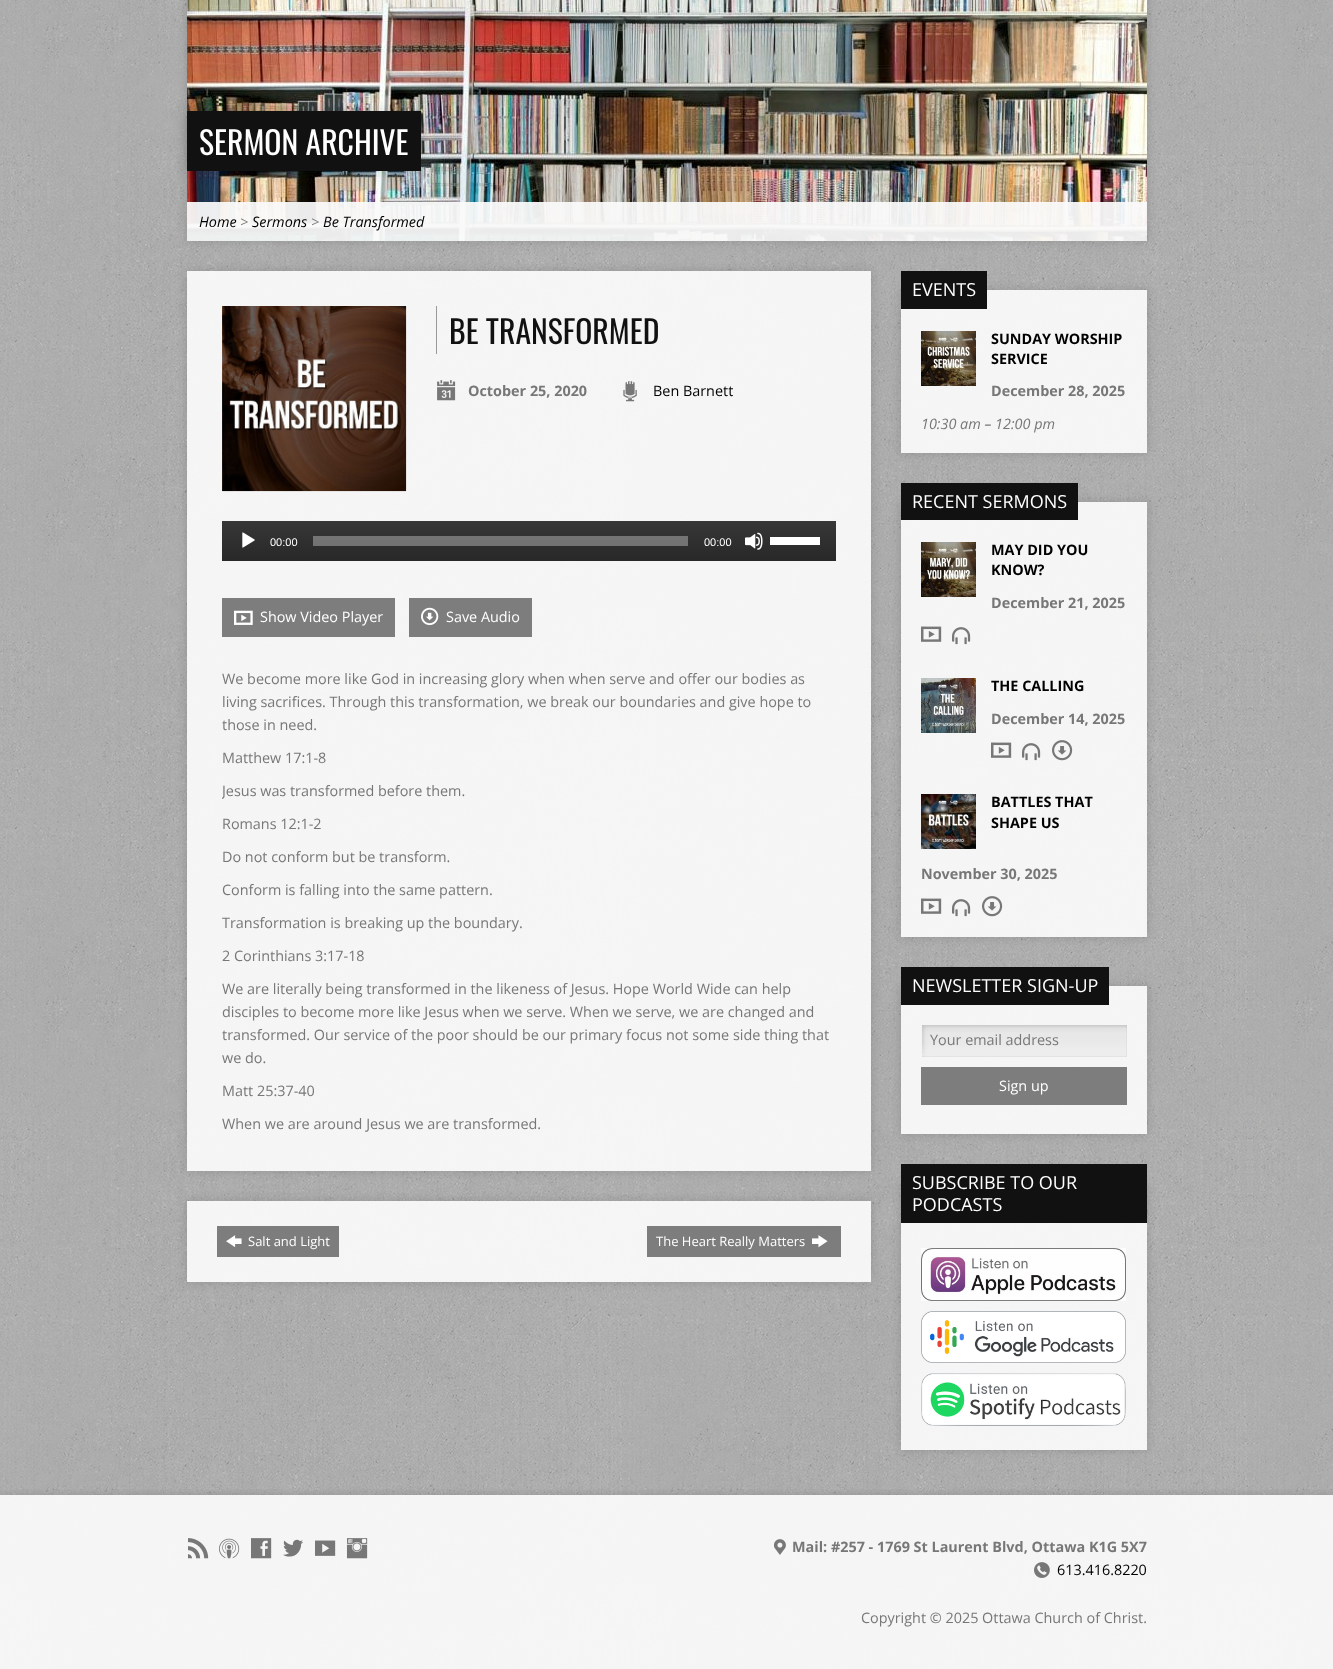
<svg xmlns="http://www.w3.org/2000/svg" width="1333" height="1669">
	<defs>
		<clipPath id="clip1"><path d="M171 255H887V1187H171ZM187 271H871V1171H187Z" clip-rule="evenodd" /></clipPath>
		<linearGradient id="g1" gradientUnits="userSpaceOnUse" x1="529" y1="521" x2="529" y2="561"><stop offset="0" stop-color="#373737" /><stop offset="1" stop-color="#282828" /></linearGradient>
		<clipPath id="clip2"><rect x="222" y="306" width="614" height="830" /></clipPath>
		<clipPath id="clip3"><path d="M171 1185H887V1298H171ZM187 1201H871V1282H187Z" clip-rule="evenodd" /></clipPath>
		<clipPath id="clip4"><path d="M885 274H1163V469H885ZM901 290H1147V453H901Z" clip-rule="evenodd" /></clipPath>
		<clipPath id="clip5"><path d="M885 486H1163V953H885ZM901 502H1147V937H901Z" clip-rule="evenodd" /></clipPath>
		<clipPath id="clip6"><path d="M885 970H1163V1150H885ZM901 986H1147V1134H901Z" clip-rule="evenodd" /></clipPath>
		<clipPath id="clip7"><path d="M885 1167H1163V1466H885ZM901 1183H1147V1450H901Z" clip-rule="evenodd" /></clipPath>
		<clipPath id="clip8"><rect x="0" y="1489" width="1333" height="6" /></clipPath>
	</defs>
	<rect width="100%" height="100%" fill="#A5A5A5" />
	<image x="0" y="0" width="1333" height="1669" href="assets/img1.png" />
	<rect x="187" y="-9" width="960" height="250" fill="#000000" fill-opacity="0.15" filter="blur(5px)" />
	<image x="187" y="0" width="960" height="241" href="assets/img2.png" />
	<rect x="187" y="111" width="234" height="60" fill="#000000" fill-opacity="0.15" filter="blur(7px)" />
	<rect x="187" y="111" width="234" height="60" fill="#111111" />
	<text x="199" y="155" font-family="Oswald" font-size="31.75" fill="#FFFFFF">SERMON ARCHIVE</text>
	<rect x="187" y="202" width="960" height="39" fill="#FAFAFA" fill-opacity="0.94" />
	<text x="199" y="227" font-family="Open Sans" font-size="14.4" font-style="italic" fill="#000000">Home</text>
	<text x="240" y="227" font-family="Open Sans" font-size="14.4" font-style="italic" fill="#777777">&gt;</text>
	<text x="252" y="227" font-family="Open Sans" font-size="14.4" font-style="italic" fill="#000000">Sermons</text>
	<text x="311" y="227" font-family="Open Sans" font-size="14.4" font-style="italic" fill="#777777">&gt;</text>
	<text x="323" y="227" font-family="Open Sans" font-size="14.4" font-style="italic" fill="#000000">Be Transformed</text>
	<g clip-path="url(#clip1)">
		<rect x="187" y="271" width="684" height="900" fill="#000000" fill-opacity="0.15" filter="blur(5px)" />
	</g>
	<rect x="187" y="271" width="684" height="900" fill="#FAFAFA" fill-opacity="0.94" />
	<image x="222" y="306" width="185" height="186" href="assets/img3.png" />
	<rect x="436" y="306" width="1" height="48" fill="#999999" />
	<text x="449" y="344" font-family="Oswald" font-size="31.75" fill="#111111">BE TRANSFORMED</text>
	<image x="437" y="380" width="19" height="21" href="assets/img4.png" />
	<text x="468" y="396" font-family="Open Sans" font-size="14.4" font-weight="700" fill="#777777">October 25, 2020</text>
	<image x="623" y="381" width="14" height="21" href="assets/img5.png" />
	<text x="653" y="396" font-family="Open Sans" font-size="14.4" fill="#000000">Ben Barnett</text>
	<rect x="222" y="521" width="614" height="40" fill="url(#g1)" />
	<image x="242" y="532" width="13" height="16" href="assets/img6.png" />
	<text x="270" y="546" font-family="Liberation Sans" font-size="11" fill="#FFFFFF">00:00</text>
	<rect x="313" y="536" width="375" height="10" fill="#FFFFFF" fill-opacity="0.33" />
	<text x="704" y="546" font-family="Liberation Sans" font-size="11" fill="#FFFFFF">00:00</text>
	<image x="745" y="532" width="18" height="18" href="assets/img7.png" />
	<rect x="770" y="537" width="50" height="8" fill="#FFFFFF" />
	<rect x="222" y="598" width="173" height="39" fill="#7D7D7D" />
	<image x="234" y="610" width="19" height="15" href="assets/img8.png" />
	<text x="260" y="622" font-family="Open Sans" font-size="14.4" fill="#FFFFFF">Show Video Player</text>
	<rect x="409" y="598" width="123" height="39" fill="#7D7D7D" />
	<image x="421" y="607" width="18" height="19" href="assets/img9.png" />
	<text x="446" y="622" font-family="Open Sans" font-size="14.4" fill="#FFFFFF">Save Audio</text>
	<g font-family="Open Sans" font-size="14.4" fill="#777777">
		<text x="222" y="684">We become more like God in increasing glory when when serve and offer our bodies as</text>
		<text x="222" y="707">living sacrifices. Through this transformation, we break our boundaries and give hope to</text>
		<text x="222" y="730">those in need.</text>
		<text x="222" y="763">Matthew 17:1-8</text>
	</g>
	<g clip-path="url(#clip2)">
		<text x="222" y="796" font-family="Open Sans" font-size="14.4" fill="#777777">Jesus was transformed before them.</text>
	</g>
	<g font-family="Open Sans" font-size="14.4" fill="#777777">
		<text x="222" y="829">Romans 12:1-2</text>
		<text x="222" y="862">Do not conform but be transform.</text>
		<text x="222" y="895">Conform is falling into the same pattern.</text>
		<text x="222" y="928">Transformation is breaking up the boundary.</text>
		<text x="222" y="961">2 Corinthians 3:17-18</text>
		<text x="222" y="994">We are literally being transformed in the likeness of Jesus. Hope World Wide can help</text>
		<text x="222" y="1017">disciples to become more like Jesus when we serve. When we serve, we are changed and</text>
		<text x="222" y="1040">transformed. Our service of the poor should be our primary focus not some side thing that</text>
		<text x="222" y="1063">we do.</text>
		<text x="222" y="1096">Matt 25:37-40</text>
		<text x="222" y="1129">When we are around Jesus we are transformed.</text>
	</g>
	<g clip-path="url(#clip3)">
		<rect x="187" y="1201" width="684" height="81" fill="#000000" fill-opacity="0.15" filter="blur(5px)" />
	</g>
	<rect x="187" y="1201" width="684" height="81" fill="#FAFAFA" fill-opacity="0.94" />
	<rect x="217" y="1226" width="122" height="31" fill="#7D7D7D" />
	<image x="226" y="1235" width="16" height="12" href="assets/img10.png" />
	<text x="248" y="1246" font-family="Open Sans" font-size="13" fill="#FFFFFF">Salt and Light</text>
	<rect x="647" y="1226" width="194" height="31" fill="#7D7D7D" />
	<text x="656" y="1246" font-family="Open Sans" font-size="13" fill="#FFFFFF">The Heart Really Matters</text>
	<image x="812" y="1235" width="16" height="13" href="assets/img11.png" />
	<g clip-path="url(#clip4)">
		<rect x="901" y="290" width="246" height="163" fill="#000000" fill-opacity="0.15" filter="blur(5px)" />
	</g>
	<rect x="901" y="290" width="246" height="163" fill="#FAFAFA" fill-opacity="0.94" />
	<rect x="901" y="271" width="86" height="38" fill="#111111" />
	<text x="912" y="296" font-family="Open Sans" font-size="18" fill="#FFFFFF">EVENTS</text>
	<image x="921" y="331" width="55" height="55" href="assets/img12.png" />
	<g font-family="Open Sans" font-size="14.4" font-weight="700" fill="#000000">
		<text x="991" y="344">SUNDAY WORSHIP</text>
		<text x="991" y="364">SERVICE</text>
	</g>
	<text x="991" y="396" font-family="Open Sans" font-size="14.4" font-weight="700" fill="#777777">December 28, 2025</text>
	<text x="921" y="429" font-family="Open Sans" font-size="14.4" font-style="italic" fill="#777777">10:30 am – 12:00 pm</text>
	<g clip-path="url(#clip5)">
		<rect x="901" y="502" width="246" height="435" fill="#000000" fill-opacity="0.15" filter="blur(5px)" />
	</g>
	<rect x="901" y="502" width="246" height="435" fill="#FAFAFA" fill-opacity="0.94" />
	<rect x="901" y="483" width="177" height="37" fill="#111111" />
	<text x="912" y="508" font-family="Open Sans" font-size="18" fill="#FFFFFF">RECENT SERMONS</text>
	<image x="921" y="542" width="55" height="55" href="assets/img13.png" />
	<g font-family="Open Sans" font-size="14.4" font-weight="700" fill="#000000">
		<text x="991" y="555">MAY DID YOU</text>
		<text x="991" y="575">KNOW?</text>
	</g>
	<text x="991" y="608" font-family="Open Sans" font-size="14.4" font-weight="700" fill="#777777">December 21, 2025</text>
	<image x="921" y="626" width="21" height="16" href="assets/img14.png" />
	<image x="952" y="627" width="19" height="18" href="assets/img15.png" />
	<image x="921" y="678" width="55" height="55" href="assets/img16.png" />
	<text x="991" y="691" font-family="Open Sans" font-size="14.4" font-weight="700" fill="#000000">THE CALLING</text>
	<text x="991" y="724" font-family="Open Sans" font-size="14.4" font-weight="700" fill="#777777">December 14, 2025</text>
	<image x="991" y="742" width="21" height="16" href="assets/img17.png" />
	<image x="1022" y="743" width="19" height="18" href="assets/img18.png" />
	<image x="1052" y="740" width="21" height="21" href="assets/img19.png" />
	<image x="921" y="794" width="55" height="55" href="assets/img20.png" />
	<g font-family="Open Sans" font-size="14.4" font-weight="700" fill="#000000">
		<text x="991" y="807">BATTLES THAT</text>
		<text x="991" y="828">SHAPE US</text>
	</g>
	<text x="921" y="879" font-family="Open Sans" font-size="14.4" font-weight="700" fill="#777777">November 30, 2025</text>
	<image x="921" y="898" width="21" height="16" href="assets/img21.png" />
	<image x="952" y="899" width="19" height="18" href="assets/img22.png" />
	<image x="982" y="896" width="21" height="21" href="assets/img23.png" />
	<g clip-path="url(#clip6)">
		<rect x="901" y="986" width="246" height="148" fill="#000000" fill-opacity="0.15" filter="blur(5px)" />
	</g>
	<rect x="901" y="986" width="246" height="148" fill="#FAFAFA" fill-opacity="0.94" />
	<rect x="901" y="967" width="208" height="38" fill="#111111" />
	<text x="912" y="992" font-family="Open Sans" font-size="18" fill="#FFFFFF">NEWSLETTER SIGN-UP</text>
	<rect x="921" y="1025" width="1" height="32" fill="#FFFFFF" />
	<image x="922" y="1025" width="205" height="32" href="assets/img24.png" />
	<path d="M1127 1025V1057L1126 1056V1025Z" fill="#969696" fill-opacity="0.1" />
	<path d="M1127 1057H921L922 1056H1126Z" fill="#969696" fill-opacity="0.1" />
	<path d="M921 1057V1025H922V1056Z" fill="#969696" fill-opacity="0.1" />
	<text x="930" y="1045" font-family="Open Sans" font-size="14.4" fill="#777777">Your email address</text>
	<rect x="921" y="1067" width="206" height="38" fill="#7D7D7D" />
	<text x="999" y="1091" font-family="Open Sans" font-size="14.4" fill="#FFFFFF">Sign up</text>
	<g clip-path="url(#clip7)">
		<rect x="901" y="1183" width="246" height="267" fill="#000000" fill-opacity="0.15" filter="blur(5px)" />
	</g>
	<rect x="901" y="1223" width="246" height="227" fill="#FAFAFA" fill-opacity="0.94" />
	<rect x="901" y="1164" width="246" height="59" fill="#111111" />
	<g font-family="Open Sans" font-size="18" fill="#FFFFFF">
		<text x="912" y="1189">SUBSCRIBE TO OUR</text>
		<text x="912" y="1211">PODCASTS</text>
	</g>
	<image x="921" y="1248" width="205" height="53" href="assets/img25.png" />
	<image x="921" y="1311" width="205" height="52" href="assets/img26.png" />
	<image x="921" y="1373" width="205" height="53" href="assets/img27.png" />
	<g clip-path="url(#clip8)">
		<rect x="0" y="1495" width="1333" height="174" fill="#000000" fill-opacity="0.15" filter="blur(5px)" />
	</g>
	<rect x="0" y="1495" width="1333" height="174" fill="#FAFAFA" fill-opacity="0.94" />
	<image x="188" y="1538" width="21" height="21" href="assets/img28.png" />
	<image x="219" y="1538" width="21" height="21" href="assets/img29.png" />
	<image x="251" y="1538" width="21" height="21" href="assets/img30.png" />
	<image x="283" y="1539" width="20" height="18" href="assets/img31.png" />
	<image x="315" y="1540" width="21" height="16" href="assets/img32.png" />
	<image x="346" y="1538" width="22" height="21" href="assets/img33.png" />
	<image x="774" y="1539" width="12" height="16" href="assets/img34.png" />
	<text x="792" y="1552" font-family="Open Sans" font-size="14.4" font-weight="700" fill="#777777">Mail: #257 - 1769 St Laurent Blvd, Ottawa K1G 5X7</text>
	<image x="1034" y="1562" width="16" height="16" href="assets/img35.png" />
	<text x="1057" y="1575" font-family="Open Sans" font-size="14.4" fill="#000000">613.416.8220</text>
	<text x="861" y="1623" font-family="Open Sans" font-size="14.4" fill="#777777">Copyright © 2025 Ottawa Church of Christ.</text>
</svg>
